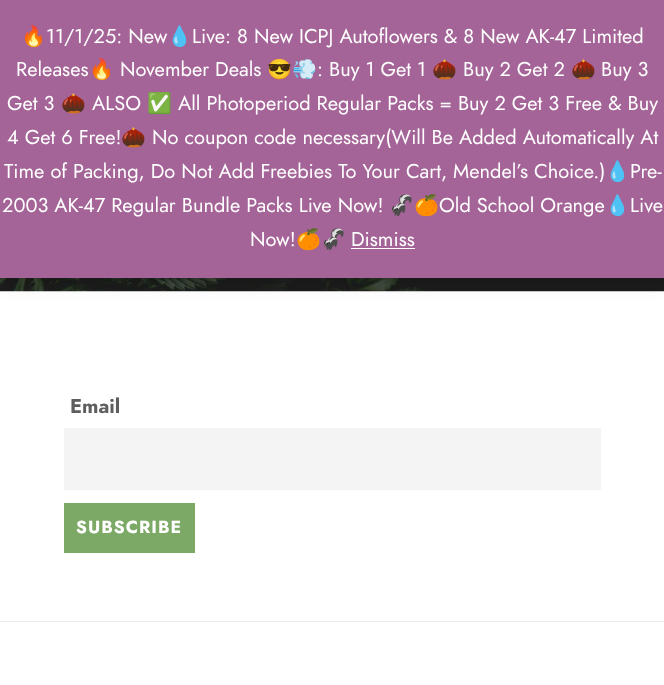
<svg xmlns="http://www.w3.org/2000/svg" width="664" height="685">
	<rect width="100%" height="100%" fill="#FFFFFF" />
	<image x="0" y="278" width="664" height="14" href="assets/img1.png" />
	<rect x="0" y="1" width="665" height="278" fill="#000000" fill-opacity="0.2" filter="blur(10px)" />
	<rect x="0" y="0" width="664" height="278" fill="#A46497" />
	<text x="21" y="43" font-family="Noto Color Emoji" font-size="20" fill="#FFFFFF">🔥</text>
	<text x="46" y="43" font-family="Jost" font-size="20" fill="#FFFFFF">11/1/25: New</text>
	<text x="167" y="43" font-family="Noto Color Emoji" font-size="20" fill="#FFFFFF">💧</text>
	<g font-family="Jost" font-size="20" fill="#FFFFFF">
		<text x="192" y="43">Live: 8 New ICPJ Autoflowers &amp; 8 New AK-47 Limited</text>
		<text x="16" y="76">Releases</text>
	</g>
	<text x="89" y="76" font-family="Noto Color Emoji" font-size="20" fill="#FFFFFF">🔥</text>
	<text x="120" y="76" font-family="Jost" font-size="20" fill="#FFFFFF">November Deals</text>
	<text x="267" y="76" font-family="Noto Color Emoji" font-size="20" fill="#FFFFFF">😎💨</text>
	<text x="317" y="76" font-family="Jost" font-size="20" fill="#FFFFFF">: Buy 1 Get 1</text>
	<text x="432" y="76" font-family="Noto Color Emoji" font-size="20" fill="#FFFFFF">🌰</text>
	<text x="463" y="76" font-family="Jost" font-size="20" fill="#FFFFFF">Buy 2 Get 2</text>
	<text x="571" y="76" font-family="Noto Color Emoji" font-size="20" fill="#FFFFFF">🌰</text>
	<g font-family="Jost" font-size="20" fill="#FFFFFF">
		<text x="601" y="76">Buy 3</text>
		<text x="7" y="110">Get 3</text>
	</g>
	<text x="61" y="110" font-family="Noto Color Emoji" font-size="20" fill="#FFFFFF">🌰</text>
	<text x="92" y="110" font-family="Jost" font-size="20" fill="#FFFFFF">ALSO</text>
	<text x="147" y="110" font-family="Noto Color Emoji" font-size="20" fill="#FFFFFF">✅</text>
	<g font-family="Jost" font-size="20" fill="#FFFFFF">
		<text x="178" y="110">All Photoperiod Regular Packs = Buy 2 Get 3 Free &amp; Buy</text>
		<text x="7" y="144">4 Get 6 Free!</text>
	</g>
	<text x="121" y="144" font-family="Noto Color Emoji" font-size="20" fill="#FFFFFF">🌰</text>
	<g font-family="Jost" font-size="20" fill="#FFFFFF">
		<text x="152" y="144">No coupon code necessary(Will Be Added Automatically At</text>
		<text x="4" y="178">Time of Packing, Do Not Add Freebies To Your Cart, Mendel’s Choice.)</text>
	</g>
	<text x="605" y="178" font-family="Noto Color Emoji" font-size="20" fill="#FFFFFF">💧</text>
	<g font-family="Jost" font-size="20" fill="#FFFFFF">
		<text x="630" y="178">Pre-</text>
		<text x="2" y="212">2003 AK-47 Regular Bundle Packs Live Now!</text>
	</g>
	<text x="389" y="212" font-family="Noto Color Emoji" font-size="20" fill="#FFFFFF">🦨🍊</text>
	<text x="439" y="212" font-family="Jost" font-size="20" fill="#FFFFFF">Old School Orange</text>
	<text x="605" y="212" font-family="Noto Color Emoji" font-size="20" fill="#FFFFFF">💧</text>
	<g font-family="Jost" font-size="20" fill="#FFFFFF">
		<text x="630" y="212">Live</text>
		<text x="250" y="246">Now!</text>
	</g>
	<text x="296" y="246" font-family="Noto Color Emoji" font-size="20" fill="#FFFFFF">🍊🦨</text>
	<text x="351" y="246" font-family="Jost" font-size="20" fill="#FFFFFF">Dismiss</text>
	<rect x="351" y="248" width="64" height="1" fill="#FFFFFF" />
	<text x="70" y="413" font-family="Jost" font-size="20" font-weight="700" fill="#5E5E5E">Email</text>
	<rect x="64" y="428" width="537" height="62" fill="#F4F4F4" />
	<rect x="64" y="503" width="131" height="50" fill="#7DA966" />
	<text x="76" y="533" font-family="Jost" font-size="17.5" font-weight="700" letter-spacing="1" fill="#FFFFFF">SUBSCRIBE</text>
	<rect x="0" y="621" width="664" height="1" fill="#E9E9E9" />
</svg>
